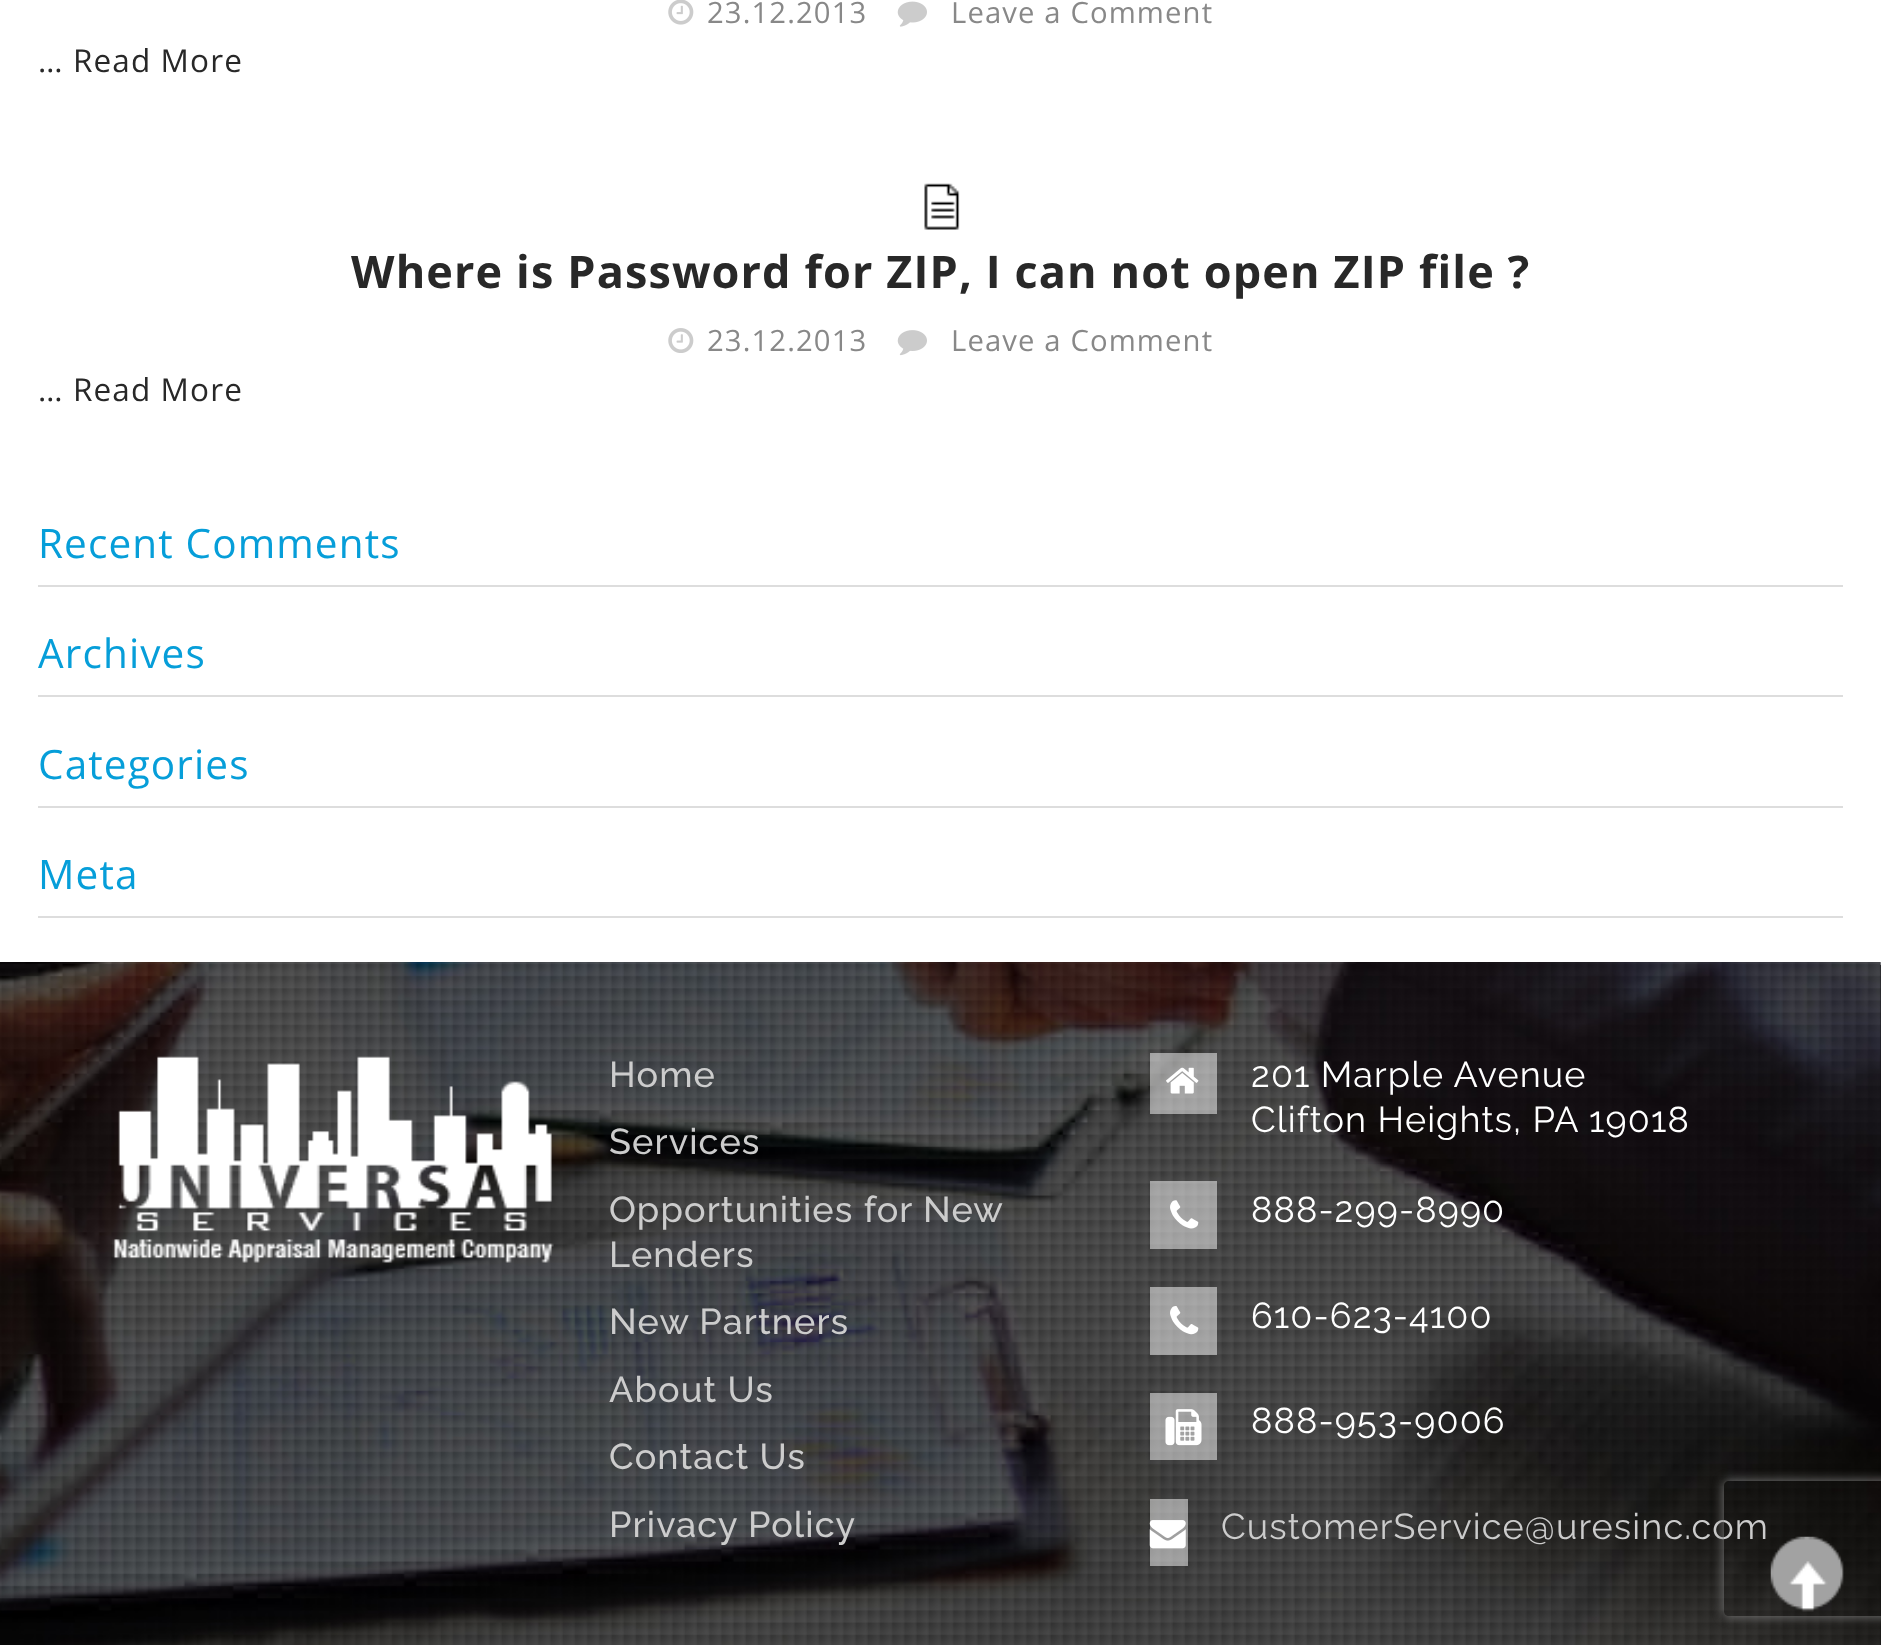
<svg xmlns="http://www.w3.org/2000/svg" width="1881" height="1645">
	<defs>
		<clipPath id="clip1"><path d="M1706 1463H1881V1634H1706ZM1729 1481H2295C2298 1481 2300 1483 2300 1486V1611C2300 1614 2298 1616 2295 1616H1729C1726 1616 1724 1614 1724 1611V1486C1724 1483 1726 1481 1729 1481Z" clip-rule="evenodd" /></clipPath>
	</defs>
	<rect width="100%" height="100%" fill="#FFFFFF" />
	<image x="668" y="0" width="26" height="25" href="assets/img1.png" />
	<text x="707" y="23" font-family="Open Sans" font-size="29.25" letter-spacing="1.12" fill="#888888">23.12.2013</text>
	<image x="897" y="1" width="30" height="26" href="assets/img2.png" />
	<text x="951" y="23" font-family="Open Sans" font-size="29.25" letter-spacing="1.12" fill="#888888">Leave a Comment</text>
	<text x="38" y="72" font-family="Open Sans" font-size="31.5" letter-spacing="1.12" fill="#282828">… Read More</text>
	<image x="924" y="183" width="36" height="47" href="assets/img3.png" />
	<text x="351" y="288" font-family="Open Sans" font-size="45" font-weight="700" letter-spacing="1.12" fill="#282828">Where is Password for ZIP, I can not open ZIP file ?</text>
	<image x="668" y="328" width="26" height="25" href="assets/img4.png" />
	<text x="707" y="351" font-family="Open Sans" font-size="29.25" letter-spacing="1.12" fill="#888888">23.12.2013</text>
	<image x="897" y="330" width="30" height="26" href="assets/img5.png" />
	<text x="951" y="351" font-family="Open Sans" font-size="29.25" letter-spacing="1.12" fill="#888888">Leave a Comment</text>
	<text x="38" y="401" font-family="Open Sans" font-size="31.5" letter-spacing="1.12" fill="#282828">… Read More</text>
	<rect x="38" y="585" width="1805" height="2" fill="#DDDDDD" />
	<text x="38" y="558" font-family="Open Sans" font-size="40.5" letter-spacing="1.12" fill="#069ED9">Recent Comments</text>
	<rect x="38" y="695" width="1805" height="2" fill="#DDDDDD" />
	<text x="38" y="668" font-family="Open Sans" font-size="40.5" letter-spacing="1.12" fill="#069ED9">Archives</text>
	<rect x="38" y="806" width="1805" height="2" fill="#DDDDDD" />
	<text x="38" y="779" font-family="Open Sans" font-size="40.5" letter-spacing="1.12" fill="#069ED9">Categories</text>
	<rect x="38" y="916" width="1805" height="2" fill="#DDDDDD" />
	<text x="38" y="889" font-family="Open Sans" font-size="40.5" letter-spacing="1.12" fill="#069ED9">Meta</text>
	<rect x="1880" y="965" width="1" height="680" fill="#0F0F0F" />
	<rect x="1880" y="963" width="1" height="2" fill="#EEEEEE" />
	<image x="0" y="962" width="1881" height="683" href="assets/img6.png" />
	<image x="112" y="1056" width="442" height="207" href="assets/img7.png" />
	<g font-family="Raleway" font-size="36" font-weight="500" letter-spacing="1.12" fill="#CCCCCC">
		<text x="609" y="1087">Home</text>
		<text x="609" y="1154">Services</text>
		<text x="609" y="1222">Opportunities for New</text>
		<text x="609" y="1267">Lenders</text>
		<text x="609" y="1334">New Partners</text>
		<text x="609" y="1402">About Us</text>
		<text x="609" y="1469">Contact Us</text>
		<text x="609" y="1537">Privacy Policy</text>
	</g>
	<rect x="1150" y="1053" width="67" height="61" fill="#FFFFFF" fill-opacity="0.5" />
	<image x="1166" y="1067" width="33" height="27" href="assets/img8.png" />
	<g font-family="Raleway" font-size="36" font-weight="100" letter-spacing="1.12" fill="#FFFFFF">
		<text x="1251" y="1087">201 Marple Avenue</text>
		<text x="1251" y="1132">Clifton Heights, PA 19018</text>
	</g>
	<rect x="1150" y="1181" width="67" height="68" fill="#FFFFFF" fill-opacity="0.5" />
	<image x="1170" y="1200" width="29" height="29" href="assets/img9.png" />
	<text x="1251" y="1222" font-family="Raleway" font-size="36" font-weight="100" letter-spacing="1.12" fill="#FFFFFF">888-299-8990</text>
	<rect x="1150" y="1287" width="67" height="68" fill="#FFFFFF" fill-opacity="0.5" />
	<image x="1170" y="1306" width="29" height="29" href="assets/img10.png" />
	<text x="1251" y="1328" font-family="Raleway" font-size="36" font-weight="100" letter-spacing="1.12" fill="#FFFFFF">610-623-4100</text>
	<rect x="1150" y="1393" width="67" height="67" fill="#FFFFFF" fill-opacity="0.5" />
	<image x="1165" y="1409" width="37" height="37" href="assets/img11.png" />
	<text x="1251" y="1433" font-family="Raleway" font-size="36" font-weight="100" letter-spacing="1.12" fill="#FFFFFF">888-953-9006</text>
	<rect x="1150" y="1499" width="38" height="67" fill="#FFFFFF" fill-opacity="0.5" />
	<image x="1149" y="1520" width="37" height="29" href="assets/img12.png" />
	<text x="1221" y="1539" font-family="Raleway" font-size="36" font-weight="100" letter-spacing="1.12" fill="#CCCCCC">CustomerService@uresinc.com</text>
	<g clip-path="url(#clip1)">
		<rect x="1724" y="1481" width="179" height="135" rx="5" fill="#808080" filter="blur(5.5px)" />
	</g>
	<image x="1770" y="1536" width="74" height="76" href="assets/img13.png" />
</svg>
